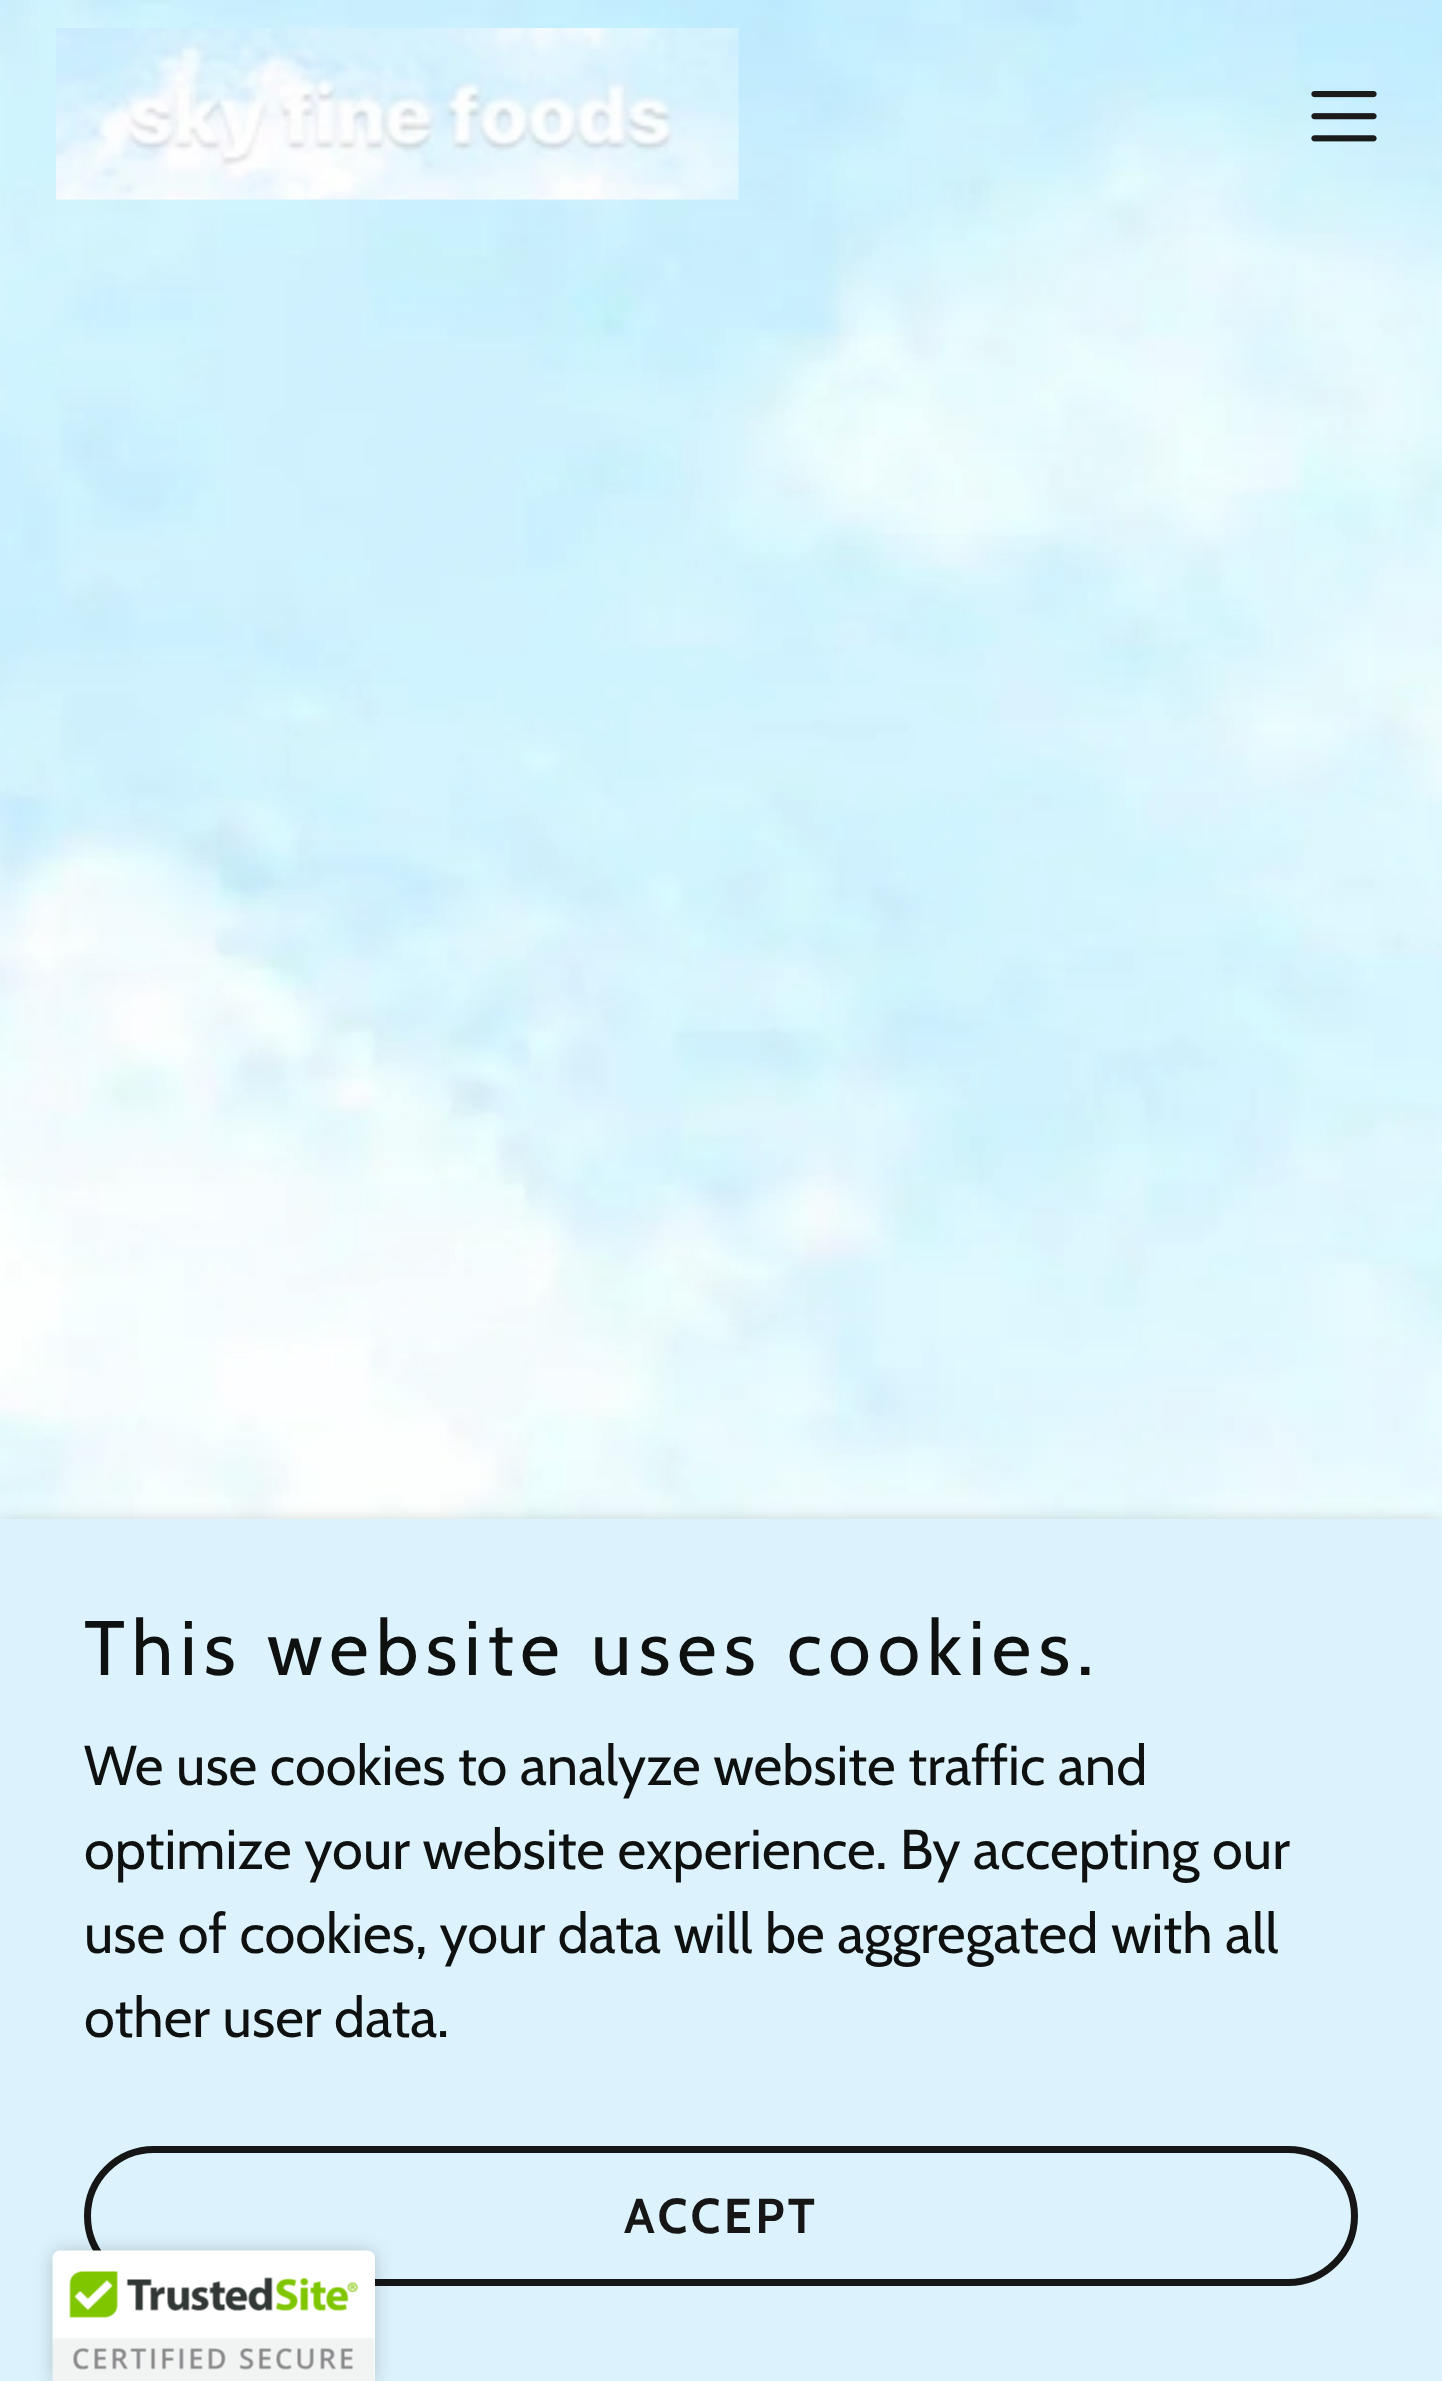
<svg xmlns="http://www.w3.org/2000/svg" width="1442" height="2381">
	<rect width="100%" height="100%" fill="#FFFFFF" />
	<image x="0" y="0" width="1442" height="1519" href="assets/img1.png" />
	<image x="56" y="28" width="683" height="172" href="assets/img2.png" />
	<image x="1311" y="91" width="66" height="51" href="assets/img3.png" />
	<rect x="0" y="1526" width="1442" height="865" fill="#000000" fill-opacity="0.3" filter="blur(10.5px)" />
	<rect x="0" y="1519" width="1442" height="862" fill="#DCF3FD" />
	<text x="84" y="1675" font-family="Cabin" font-size="77" letter-spacing="7" fill="#0F1010">This website uses cookies.</text>
	<g font-family="Cabin" font-size="56" fill="#0F1010">
		<text x="84" y="1785">We use cookies to analyze website traffic and</text>
		<text x="84" y="1869">optimize your website experience. By accepting our</text>
		<text x="84" y="1953">use of cookies, your data will be aggregated with all</text>
		<text x="84" y="2037">other user data.</text>
	</g>
	<rect x="87.5" y="2149.5" width="1267" height="133" rx="66.5" fill="none" stroke="#161616" stroke-width="7" />
	<text x="624" y="2233" font-family="Cabin" font-size="49" font-weight="700" letter-spacing="3.5" fill="#161616">ACCEPT</text>
	<rect x="53" y="2251" width="322" height="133" rx="7" fill="#000000" fill-opacity="0.2" filter="blur(9px)" />
	<path d="M60 2251H368C372 2251 375 2254 375 2258V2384H53V2258C53 2254 56 2251 60 2251Z" fill="#FFFFFF" />
	<image x="52" y="2250" width="323" height="131" href="assets/img4.png" />
</svg>
